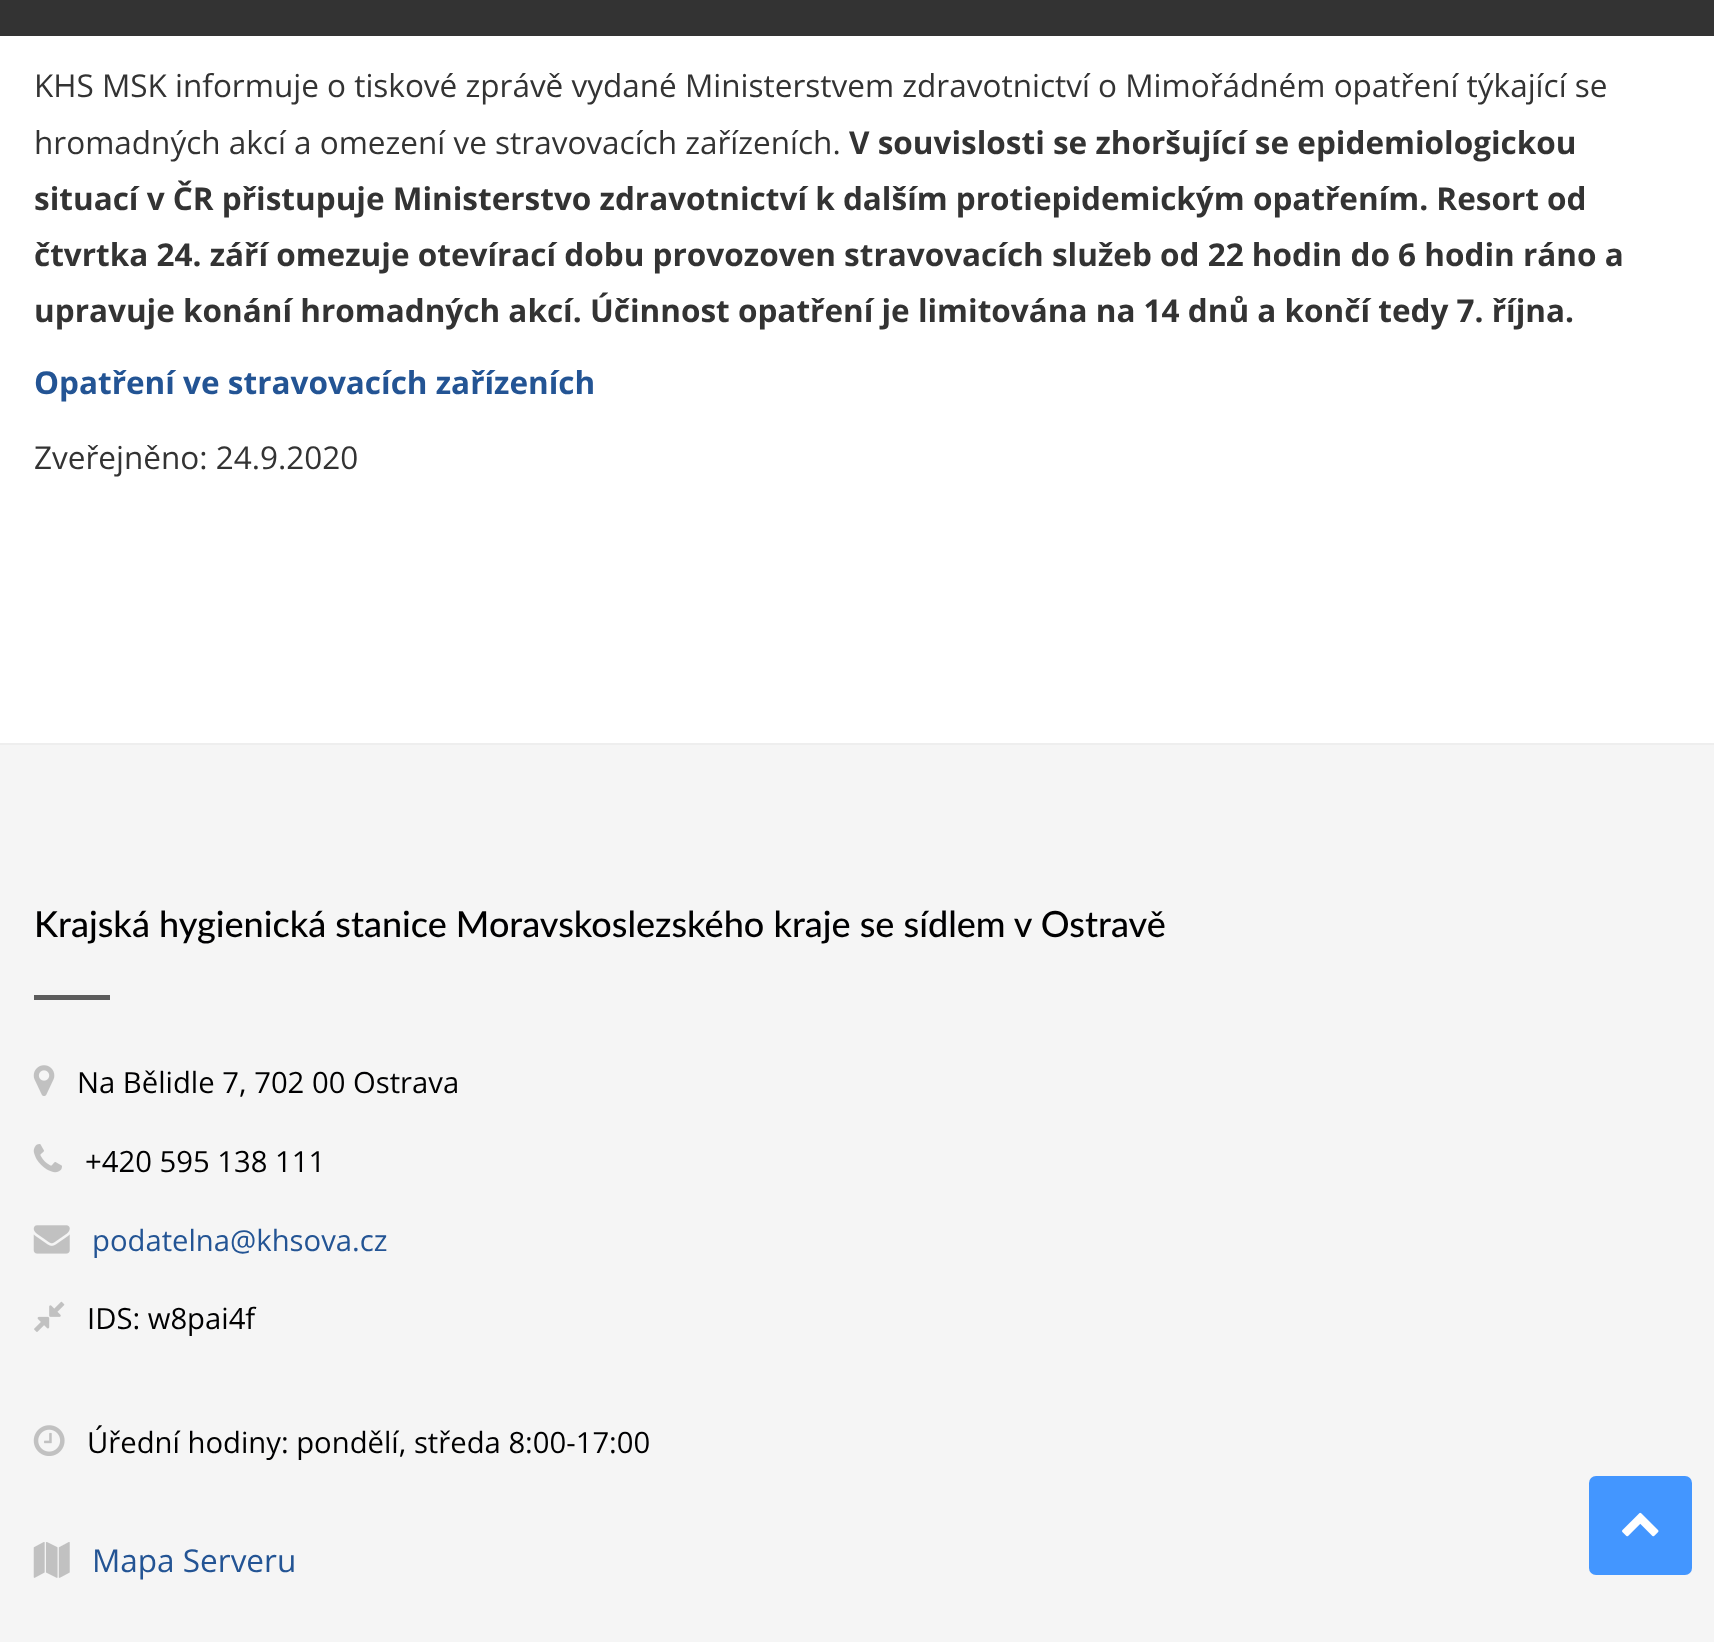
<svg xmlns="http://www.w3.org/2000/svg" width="1714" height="1642">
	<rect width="100%" height="100%" fill="#FFFFFF" />
	<rect x="0" y="0" width="1714" height="36" fill="#333333" />
	<rect x="0" y="743" width="1714" height="2" fill="#EEEEEE" />
	<g font-family="Open Sans" font-size="31.5" fill="#333333">
		<text x="34" y="97">KHS MSK informuje o tiskové zprávě vydané Ministerstvem zdravotnictví o Mimořádném opatření týkající se</text>
		<text x="34" y="154">hromadných akcí a omezení ve stravovacích zařízeních.</text>
	</g>
	<g font-family="Open Sans" font-size="31.5" font-weight="700" fill="#333333">
		<text x="849" y="154">V souvislosti se zhoršující se epidemiologickou</text>
		<text x="34" y="210">situací v ČR přistupuje Ministerstvo zdravotnictví k dalším protiepidemickým opatřením. Resort od</text>
		<text x="34" y="266">čtvrtka 24. září omezuje otevírací dobu provozoven stravovacích služeb od 22 hodin do 6 hodin ráno a</text>
		<text x="34" y="322">upravuje konání hromadných akcí. Účinnost opatření je limitována na 14 dnů a končí tedy 7. října.</text>
	</g>
	<text x="34" y="394" font-family="Open Sans" font-size="31.5" font-weight="700" fill="#235494">Opatření ve stravovacích zařízeních</text>
	<text x="34" y="469" font-family="Open Sans" font-size="31.5" fill="#333333">Zveřejněno: 24.9.2020</text>
	<rect x="0" y="745" width="1714" height="897" fill="#F5F5F5" />
	<text x="34" y="937" font-family="Lato" font-size="36" font-weight="500" fill="#000001">Krajská hygienická stanice Moravskoslezského kraje se sídlem v Ostravě</text>
	<rect x="34" y="995" width="76" height="5" fill="#5C5C5C" />
	<image x="33" y="1065" width="22" height="31" href="assets/img1.png" />
	<text x="77" y="1093" font-family="Open Sans" font-size="29.25" fill="#000001">Na Bělidle 7, 702 00 Ostrava</text>
	<image x="33" y="1144" width="29" height="29" href="assets/img2.png" />
	<text x="85" y="1172" font-family="Open Sans" font-size="29.25" fill="#000001">+420 595 138 111</text>
	<image x="33" y="1225" width="37" height="29" href="assets/img3.png" />
	<text x="92" y="1251" font-family="Open Sans" font-size="29.25" fill="#235494">podatelna@khsova.cz</text>
	<image x="34" y="1301" width="31" height="31" href="assets/img4.png" />
	<text x="87" y="1329" font-family="Open Sans" font-size="29.25" fill="#000001">IDS: w8pai4f</text>
	<image x="33" y="1425" width="32" height="31" href="assets/img5.png" />
	<text x="87" y="1453" font-family="Open Sans" font-size="29.25" fill="#000001">Úřední hodiny: pondělí, středa 8:00-17:00</text>
	<image x="33" y="1542" width="37" height="36" href="assets/img6.png" />
	<text x="92" y="1572" font-family="Open Sans" font-size="31.5" fill="#235494">Mapa Serveru</text>
	<rect x="1589" y="1476" width="103" height="99" rx="7" fill="#4396FF" />
	<image x="1622" y="1512" width="37" height="25" href="assets/img7.png" />
</svg>
